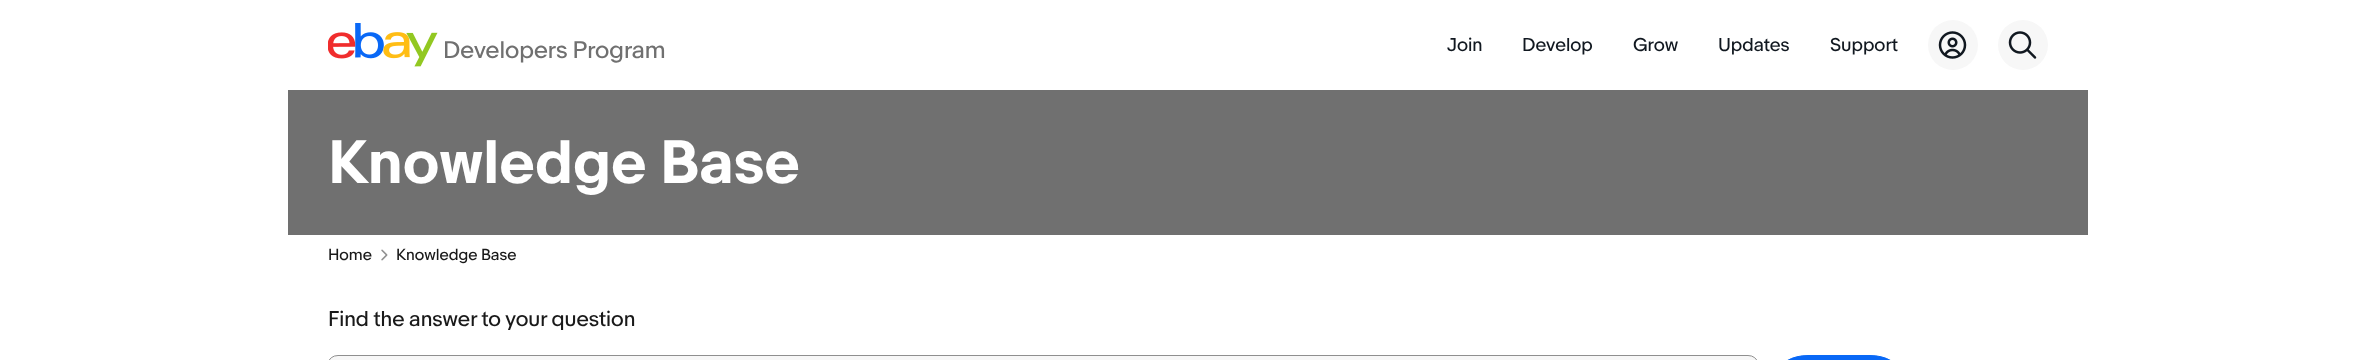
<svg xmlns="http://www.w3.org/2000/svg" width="2374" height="360">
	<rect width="100%" height="100%" fill="#FFFFFF" />
	<image x="328" y="23" width="110" height="44" href="assets/img1.png" />
	<text x="443" y="58" font-family="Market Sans" font-size="22.5" fill="#707070">Developers Program</text>
	<g font-family="Market Sans" font-size="17.5" fill="#111820">
		<text x="1447" y="51">Join</text>
		<text x="1522" y="51">Develop</text>
		<text x="1633" y="51">Grow</text>
		<text x="1718" y="51">Updates</text>
		<text x="1830" y="51">Support</text>
	</g>
	<circle cx="1953" cy="45" r="25" fill="#F7F7F7" />
	<image x="1938" y="31" width="29" height="28" href="assets/img2.png" />
	<circle cx="2023" cy="45" r="25" fill="#F7F7F7" />
	<image x="2008" y="31" width="29" height="28" href="assets/img3.png" />
	<rect x="288" y="90" width="1800" height="145" fill="#707070" />
	<text x="328" y="183" font-family="Market Sans" font-size="57.5" font-weight="700" fill="#FFFFFF">Knowledge Base</text>
	<text x="328" y="260" font-family="Market Sans" font-size="15" fill="#191919">Home</text>
	<image x="381" y="249" width="7" height="12" href="assets/img4.png" />
	<text x="396" y="260" font-family="Market Sans" font-size="15" fill="#191919">Knowledge Base</text>
	<text x="328" y="326" font-family="Market Sans" font-size="20" fill="#191919">Find the answer to your question</text>
	<rect x="328.5" y="355.5" width="1429" height="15" rx="9.5" fill="#F7F7F7" stroke="#8F8F8F" />
	<rect x="1778.5" y="355.5" width="121" height="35" rx="29.5" fill="#0968F6" stroke="#0968F6" />
</svg>
